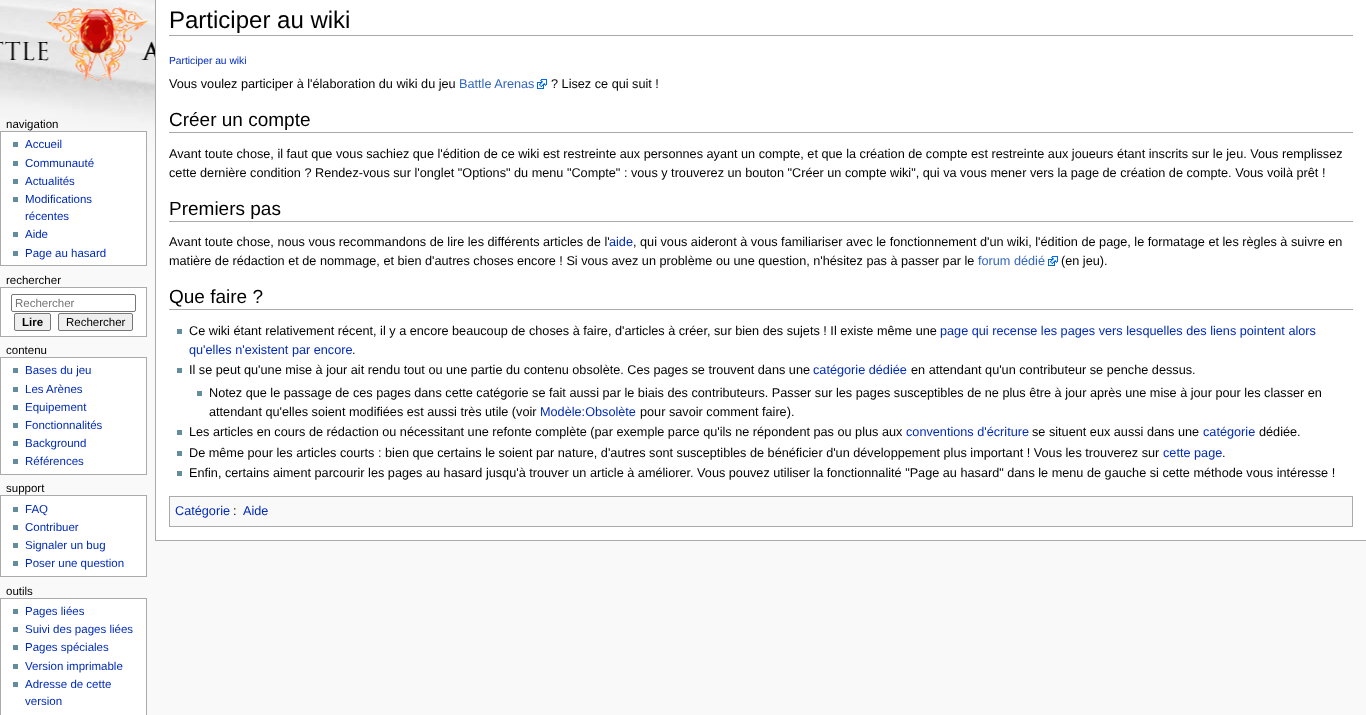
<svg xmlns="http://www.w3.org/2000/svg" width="1366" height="715">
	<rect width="100%" height="100%" fill="#F9F9F9" />
	<image x="0" y="0" width="155" height="151" href="assets/img1.png" />
	<image x="0" y="7" width="155" height="75" href="assets/img2.png" />
	<text x="6" y="128" font-family="Liberation Sans" font-size="11.5" fill="#000000">navigation</text>
	<rect x="0.5" y="131.5" width="146" height="134" fill="#FFFFFF" stroke="#AAAAAA" />
	<rect x="13" y="142" width="5" height="5" fill="#638C9C" />
	<text x="25" y="148" font-family="Liberation Sans" font-size="11.5" fill="#002BB8">Accueil</text>
	<rect x="13" y="161" width="5" height="5" fill="#638C9C" />
	<text x="25" y="167" font-family="Liberation Sans" font-size="11.5" fill="#002BB8">Communauté</text>
	<rect x="13" y="179" width="5" height="5" fill="#638C9C" />
	<text x="25" y="185" font-family="Liberation Sans" font-size="11.5" fill="#002BB8">Actualités</text>
	<rect x="13" y="197" width="5" height="5" fill="#638C9C" />
	<g font-family="Liberation Sans" font-size="11.5" fill="#002BB8">
		<text x="25" y="203">Modifications</text>
		<text x="25" y="220">récentes</text>
	</g>
	<rect x="13" y="232" width="5" height="5" fill="#638C9C" />
	<text x="25" y="238" font-family="Liberation Sans" font-size="11.5" fill="#002BB8">Aide</text>
	<rect x="13" y="251" width="5" height="5" fill="#638C9C" />
	<text x="25" y="257" font-family="Liberation Sans" font-size="11.5" fill="#002BB8">Page au hasard</text>
	<text x="6" y="284" font-family="Liberation Sans" font-size="11.5" fill="#000000">rechercher</text>
	<rect x="0.5" y="287.5" width="146" height="49" fill="#FFFFFF" stroke="#AAAAAA" />
	<rect x="11.5" y="294.5" width="124" height="17" rx="1.5" fill="none" stroke="#767676" />
	<text x="15" y="307" font-family="Liberation Sans" font-size="11.5" fill="#757575">Rechercher</text>
	<rect x="14.5" y="313.5" width="36" height="17" rx="1.5" fill="#EFEFEF" stroke="#767676" />
	<text x="22" y="326" font-family="Liberation Sans" font-size="11.5" font-weight="700" fill="#000000">Lire</text>
	<rect x="58.5" y="313.5" width="74" height="17" rx="1.5" fill="#EFEFEF" stroke="#767676" />
	<g font-family="Liberation Sans" font-size="11.5" fill="#000000">
		<text x="66" y="326">Rechercher</text>
		<text x="6" y="354">contenu</text>
	</g>
	<rect x="0.5" y="357.5" width="146" height="117" fill="#FFFFFF" stroke="#AAAAAA" />
	<rect x="13" y="368" width="5" height="5" fill="#638C9C" />
	<text x="25" y="374" font-family="Liberation Sans" font-size="11.5" fill="#002BB8">Bases du jeu</text>
	<rect x="13" y="387" width="5" height="5" fill="#638C9C" />
	<text x="25" y="393" font-family="Liberation Sans" font-size="11.5" fill="#002BB8">Les Arènes</text>
	<rect x="13" y="405" width="5" height="5" fill="#638C9C" />
	<text x="25" y="411" font-family="Liberation Sans" font-size="11.5" fill="#002BB8">Equipement</text>
	<rect x="13" y="423" width="5" height="5" fill="#638C9C" />
	<text x="25" y="429" font-family="Liberation Sans" font-size="11.5" fill="#002BB8">Fonctionnalités</text>
	<rect x="13" y="441" width="5" height="5" fill="#638C9C" />
	<text x="25" y="447" font-family="Liberation Sans" font-size="11.5" fill="#002BB8">Background</text>
	<rect x="13" y="459" width="5" height="5" fill="#638C9C" />
	<text x="25" y="465" font-family="Liberation Sans" font-size="11.5" fill="#002BB8">Références</text>
	<text x="6" y="492" font-family="Liberation Sans" font-size="11.5" fill="#000000">support</text>
	<rect x="0.5" y="495.5" width="146" height="81" fill="#FFFFFF" stroke="#AAAAAA" />
	<rect x="13" y="507" width="5" height="5" fill="#638C9C" />
	<text x="25" y="513" font-family="Liberation Sans" font-size="11.5" fill="#002BB8">FAQ</text>
	<rect x="13" y="525" width="5" height="5" fill="#638C9C" />
	<text x="25" y="531" font-family="Liberation Sans" font-size="11.5" fill="#002BB8">Contribuer</text>
	<rect x="13" y="543" width="5" height="5" fill="#638C9C" />
	<text x="25" y="549" font-family="Liberation Sans" font-size="11.5" fill="#002BB8">Signaler un bug</text>
	<rect x="13" y="561" width="5" height="5" fill="#638C9C" />
	<text x="25" y="567" font-family="Liberation Sans" font-size="11.5" fill="#002BB8">Poser une question</text>
	<text x="6" y="595" font-family="Liberation Sans" font-size="11.5" fill="#000000">outils</text>
	<rect x="0.5" y="598.5" width="146" height="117" fill="#FFFFFF" stroke="#AAAAAA" />
	<rect x="13" y="609" width="5" height="5" fill="#638C9C" />
	<text x="25" y="615" font-family="Liberation Sans" font-size="11.5" fill="#002BB8">Pages liées</text>
	<rect x="13" y="627" width="5" height="5" fill="#638C9C" />
	<text x="25" y="633" font-family="Liberation Sans" font-size="11.5" fill="#002BB8">Suivi des pages liées</text>
	<rect x="13" y="645" width="5" height="5" fill="#638C9C" />
	<text x="25" y="651" font-family="Liberation Sans" font-size="11.5" fill="#002BB8">Pages spéciales</text>
	<rect x="13" y="664" width="5" height="5" fill="#638C9C" />
	<text x="25" y="670" font-family="Liberation Sans" font-size="11.5" fill="#002BB8">Version imprimable</text>
	<rect x="13" y="682" width="5" height="5" fill="#638C9C" />
	<g font-family="Liberation Sans" font-size="11.5" fill="#002BB8">
		<text x="25" y="688">Adresse de cette</text>
		<text x="25" y="705">version</text>
	</g>
	<rect x="156" y="0" width="1210" height="540" fill="#FFFFFF" />
	<rect x="155" y="540" width="1211" height="1" fill="#AAAAAA" />
	<rect x="155" y="0" width="1" height="541" fill="#AAAAAA" />
	<rect x="169" y="35" width="1184" height="1" fill="#AAAAAA" />
	<text x="169" y="28" font-family="Liberation Sans" font-size="24" fill="#000000">Participer au wiki</text>
	<text x="169" y="64" font-family="Liberation Sans" font-size="10.25" fill="#002BB8">Participer au wiki</text>
	<text x="169" y="88" font-family="Liberation Sans" font-size="12.7" fill="#000000">Vous voulez participer à l'élaboration du wiki du jeu</text>
	<text x="459" y="88" font-family="Liberation Sans" font-size="12.7" fill="#3366BB">Battle Arenas</text>
	<image x="537" y="79" width="10" height="10" href="assets/img3.png" />
	<text x="551" y="88" font-family="Liberation Sans" font-size="12.7" fill="#000000">? Lisez ce qui suit !</text>
	<rect x="169" y="132" width="1184" height="1" fill="#AAAAAA" />
	<text x="169" y="126" font-family="Liberation Sans" font-size="19" fill="#000000">Créer un compte</text>
	<g font-family="Liberation Sans" font-size="12.7" fill="#000000">
		<text x="169" y="158">Avant toute chose, il faut que vous sachiez que l'édition de ce wiki est restreinte aux personnes ayant un compte, et que la création de compte est restreinte aux joueurs étant inscrits sur le jeu. Vous remplissez</text>
		<text x="169" y="177">cette dernière condition ? Rendez-vous sur l'onglet "Options" du menu "Compte" : vous y trouverez un bouton "Créer un compte wiki", qui va vous mener vers la page de création de compte. Vous voilà prêt !</text>
	</g>
	<rect x="169" y="221" width="1184" height="1" fill="#AAAAAA" />
	<text x="169" y="215" font-family="Liberation Sans" font-size="19" fill="#000000">Premiers pas</text>
	<text x="169" y="246" font-family="Liberation Sans" font-size="12.7" fill="#000000">Avant toute chose, nous vous recommandons de lire les différents articles de l'</text>
	<text x="609" y="246" font-family="Liberation Sans" font-size="12.7" fill="#002BB8">aide</text>
	<g font-family="Liberation Sans" font-size="12.7" fill="#000000">
		<text x="633" y="246">, qui vous aideront à vous familiariser avec le fonctionnement d'un wiki, l'édition de page, le formatage et les règles à suivre en</text>
		<text x="169" y="265">matière de rédaction et de nommage, et bien d'autres choses encore ! Si vous avez un problème ou une question, n'hésitez pas à passer par le</text>
	</g>
	<text x="978" y="265" font-family="Liberation Sans" font-size="12.7" fill="#3366BB">forum dédié</text>
	<image x="1048" y="256" width="10" height="10" href="assets/img3.png" />
	<text x="1061" y="265" font-family="Liberation Sans" font-size="12.7" fill="#000000">(en jeu).</text>
	<rect x="169" y="309" width="1184" height="1" fill="#AAAAAA" />
	<text x="169" y="303" font-family="Liberation Sans" font-size="19" fill="#000000">Que faire ?</text>
	<rect x="177" y="329" width="5" height="5" fill="#638C9C" />
	<text x="189" y="335" font-family="Liberation Sans" font-size="12.7" fill="#000000">Ce wiki étant relativement récent, il y a encore beaucoup de choses à faire, d'articles à créer, sur bien des sujets ! Il existe même une</text>
	<g font-family="Liberation Sans" font-size="12.7" fill="#002BB8">
		<text x="940" y="335">page qui recense les pages vers lesquelles des liens pointent alors</text>
		<text x="189" y="354">qu'elles n'existent par encore</text>
	</g>
	<text x="352" y="354" font-family="Liberation Sans" font-size="12.7" fill="#000000">.</text>
	<rect x="177" y="368" width="5" height="5" fill="#638C9C" />
	<text x="189" y="374" font-family="Liberation Sans" font-size="12.7" fill="#000000">Il se peut qu'une mise à jour ait rendu tout ou une partie du contenu obsolète. Ces pages se trouvent dans une</text>
	<text x="813" y="374" font-family="Liberation Sans" font-size="12.7" fill="#002BB8">catégorie dédiée</text>
	<text x="911" y="374" font-family="Liberation Sans" font-size="12.7" fill="#000000">en attendant qu'un contributeur se penche dessus.</text>
	<rect x="197" y="391" width="5" height="5" fill="#638C9C" />
	<g font-family="Liberation Sans" font-size="12.7" fill="#000000">
		<text x="209" y="397">Notez que le passage de ces pages dans cette catégorie se fait aussi par le biais des contributeurs. Passer sur les pages susceptibles de ne plus être à jour après une mise à jour pour les classer en</text>
		<text x="209" y="416">attendant qu'elles soient modifiées est aussi très utile (voir</text>
	</g>
	<text x="540" y="416" font-family="Liberation Sans" font-size="12.7" fill="#002BB8">Modèle:Obsolète</text>
	<text x="640" y="416" font-family="Liberation Sans" font-size="12.7" fill="#000000">pour savoir comment faire).</text>
	<rect x="177" y="430" width="5" height="5" fill="#638C9C" />
	<text x="189" y="436" font-family="Liberation Sans" font-size="12.7" fill="#000000">Les articles en cours de rédaction ou nécessitant une refonte complète (par exemple parce qu'ils ne répondent pas ou plus aux</text>
	<text x="906" y="436" font-family="Liberation Sans" font-size="12.7" fill="#002BB8">conventions d'écriture</text>
	<text x="1032" y="436" font-family="Liberation Sans" font-size="12.7" fill="#000000">se situent eux aussi dans une</text>
	<text x="1203" y="436" font-family="Liberation Sans" font-size="12.7" fill="#002BB8">catégorie</text>
	<text x="1259" y="436" font-family="Liberation Sans" font-size="12.7" fill="#000000">dédiée.</text>
	<rect x="177" y="451" width="5" height="5" fill="#638C9C" />
	<text x="189" y="457" font-family="Liberation Sans" font-size="12.7" fill="#000000">De même pour les articles courts : bien que certains le soient par nature, d'autres sont susceptibles de bénéficier d'un développement plus important ! Vous les trouverez sur</text>
	<text x="1163" y="457" font-family="Liberation Sans" font-size="12.7" fill="#002BB8">cette page</text>
	<text x="1222" y="457" font-family="Liberation Sans" font-size="12.7" fill="#000000">.</text>
	<rect x="177" y="471" width="5" height="5" fill="#638C9C" />
	<text x="189" y="477" font-family="Liberation Sans" font-size="12.7" fill="#000000">Enfin, certains aiment parcourir les pages au hasard jusqu'à trouver un article à améliorer. Vous pouvez utiliser la fonctionnalité "Page au hasard" dans le menu de gauche si cette méthode vous intéresse !</text>
	<rect x="169.5" y="496.5" width="1183" height="30" fill="#F9F9F9" stroke="#AAAAAA" />
	<text x="175" y="515" font-family="Liberation Sans" font-size="12.7" fill="#002BB8">Catégorie</text>
	<text x="233" y="515" font-family="Liberation Sans" font-size="12.7" fill="#000000">:</text>
	<text x="243" y="515" font-family="Liberation Sans" font-size="12.7" fill="#002BB8">Aide</text>
</svg>
